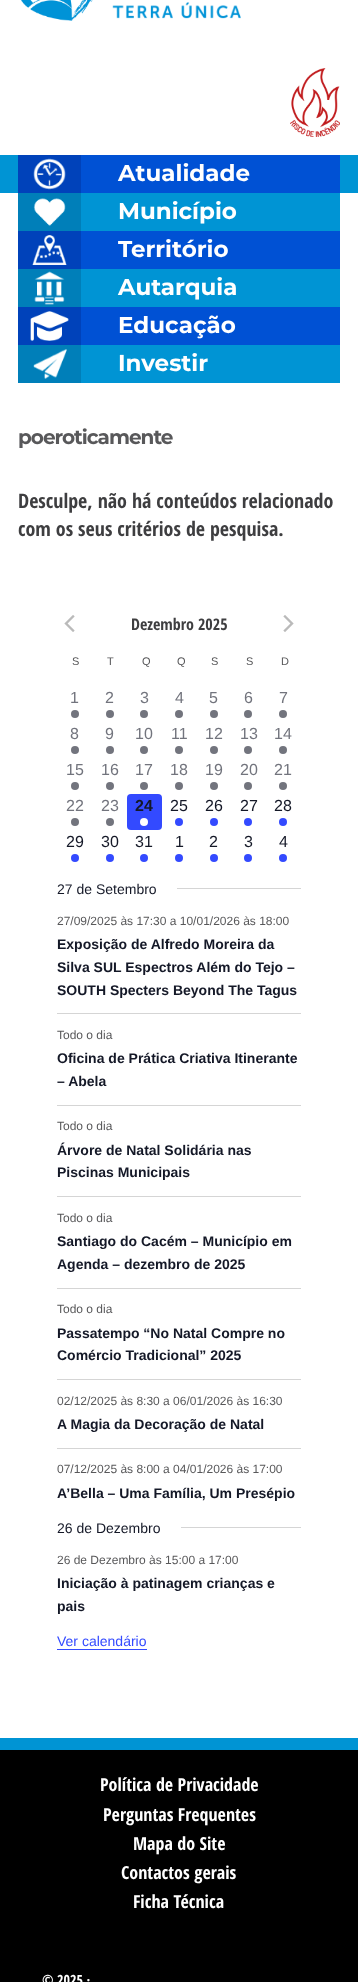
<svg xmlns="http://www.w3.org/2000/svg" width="358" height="1982">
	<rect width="100%" height="100%" fill="#FFFFFF" />
	<image x="21" y="0" width="220" height="21" href="assets/img1.png" />
	<image x="290" y="68" width="50" height="69" href="assets/img2.png" />
	<rect x="0" y="155" width="358" height="38" fill="#0094D4" />
	<rect x="81" y="155" width="259" height="38" fill="#0051D4" />
	<image x="18" y="155" width="63" height="38" href="assets/img3.png" />
	<text x="118" y="181" font-family="Montserrat" font-size="23" font-weight="700" fill="#FFFFFF">Atualidade</text>
	<rect x="81" y="193" width="259" height="38" fill="#0094D4" />
	<image x="18" y="193" width="63" height="38" href="assets/img4.png" />
	<text x="118" y="219" font-family="Montserrat" font-size="23" font-weight="700" fill="#FFFFFF">Município</text>
	<rect x="81" y="231" width="259" height="38" fill="#0051D4" />
	<image x="18" y="231" width="63" height="38" href="assets/img5.png" />
	<text x="118" y="257" font-family="Montserrat" font-size="23" font-weight="700" fill="#FFFFFF">Território</text>
	<rect x="81" y="269" width="259" height="38" fill="#0094D4" />
	<image x="18" y="269" width="63" height="38" href="assets/img6.png" />
	<text x="118" y="295" font-family="Montserrat" font-size="23" font-weight="700" fill="#FFFFFF">Autarquia</text>
	<rect x="81" y="307" width="259" height="38" fill="#0051D4" />
	<image x="18" y="307" width="63" height="38" href="assets/img7.png" />
	<text x="118" y="333" font-family="Montserrat" font-size="23" font-weight="700" fill="#FFFFFF">Educação</text>
	<rect x="81" y="345" width="259" height="38" fill="#0094D4" />
	<image x="18" y="345" width="63" height="38" href="assets/img8.png" />
	<text x="118" y="371" font-family="Montserrat" font-size="23" font-weight="700" fill="#FFFFFF">Investir</text>
	<text x="18" y="444" font-family="Montserrat" font-size="20" font-weight="700" letter-spacing="-1" fill="#58585A">poeroticamente</text>
	<g font-family="Open Sans Condensed" font-size="20" font-weight="700" fill="#3E3E40">
		<text x="18" y="508">Desculpe, não há conteúdos relacionado</text>
		<text x="18" y="536">com os seus critérios de pesquisa.</text>
	</g>
	<image x="64" y="615" width="11" height="17" href="assets/img9.png" />
	<text x="131" y="630" font-family="Open Sans Condensed" font-size="16" font-weight="700" fill="#3E3E40">Dezembro 2025</text>
	<image x="283" y="615" width="11" height="17" href="assets/img10.png" />
	<g font-family="Liberation Sans" font-size="11" fill="#58585A">
		<text x="72" y="665">S</text>
		<text x="107" y="665">T</text>
		<text x="142" y="665">Q</text>
		<text x="177" y="665">Q</text>
		<text x="211" y="665">S</text>
		<text x="246" y="665">S</text>
		<text x="281" y="665">D</text>
	</g>
	<text x="70" y="703" font-family="Liberation Sans" font-size="16" fill="#72747D">1</text>
	<circle cx="75" cy="714" r="4" fill="#72747D" />
	<text x="105" y="703" font-family="Liberation Sans" font-size="16" fill="#72747D">2</text>
	<circle cx="110" cy="714" r="4" fill="#72747D" />
	<text x="140" y="703" font-family="Liberation Sans" font-size="16" fill="#72747D">3</text>
	<circle cx="144" cy="714" r="4" fill="#72747D" />
	<text x="175" y="703" font-family="Liberation Sans" font-size="16" fill="#72747D">4</text>
	<circle cx="179" cy="714" r="4" fill="#72747D" />
	<text x="209" y="703" font-family="Liberation Sans" font-size="16" fill="#72747D">5</text>
	<circle cx="214" cy="714" r="4" fill="#72747D" />
	<text x="244" y="703" font-family="Liberation Sans" font-size="16" fill="#72747D">6</text>
	<circle cx="248" cy="714" r="4" fill="#72747D" />
	<text x="279" y="703" font-family="Liberation Sans" font-size="16" fill="#72747D">7</text>
	<circle cx="283" cy="714" r="4" fill="#72747D" />
	<text x="70" y="739" font-family="Liberation Sans" font-size="16" fill="#72747D">8</text>
	<circle cx="75" cy="750" r="4" fill="#72747D" />
	<text x="105" y="739" font-family="Liberation Sans" font-size="16" fill="#72747D">9</text>
	<circle cx="110" cy="750" r="4" fill="#72747D" />
	<text x="135" y="739" font-family="Liberation Sans" font-size="16" fill="#72747D">10</text>
	<circle cx="144" cy="750" r="4" fill="#72747D" />
	<text x="171" y="739" font-family="Liberation Sans" font-size="16" fill="#72747D">11</text>
	<circle cx="179" cy="750" r="4" fill="#72747D" />
	<text x="205" y="739" font-family="Liberation Sans" font-size="16" fill="#72747D">12</text>
	<circle cx="214" cy="750" r="4" fill="#72747D" />
	<text x="240" y="739" font-family="Liberation Sans" font-size="16" fill="#72747D">13</text>
	<circle cx="248" cy="750" r="4" fill="#72747D" />
	<text x="274" y="739" font-family="Liberation Sans" font-size="16" fill="#72747D">14</text>
	<circle cx="283" cy="750" r="4" fill="#72747D" />
	<text x="66" y="775" font-family="Liberation Sans" font-size="16" fill="#72747D">15</text>
	<circle cx="75" cy="786" r="4" fill="#72747D" />
	<text x="101" y="775" font-family="Liberation Sans" font-size="16" fill="#72747D">16</text>
	<circle cx="110" cy="786" r="4" fill="#72747D" />
	<text x="135" y="775" font-family="Liberation Sans" font-size="16" fill="#72747D">17</text>
	<circle cx="144" cy="786" r="4" fill="#72747D" />
	<text x="170" y="775" font-family="Liberation Sans" font-size="16" fill="#72747D">18</text>
	<circle cx="179" cy="786" r="4" fill="#72747D" />
	<text x="205" y="775" font-family="Liberation Sans" font-size="16" fill="#72747D">19</text>
	<circle cx="214" cy="786" r="4" fill="#72747D" />
	<text x="240" y="775" font-family="Liberation Sans" font-size="16" fill="#72747D">20</text>
	<circle cx="248" cy="786" r="4" fill="#72747D" />
	<text x="274" y="775" font-family="Liberation Sans" font-size="16" fill="#72747D">21</text>
	<circle cx="283" cy="786" r="4" fill="#72747D" />
	<text x="66" y="811" font-family="Liberation Sans" font-size="16" fill="#72747D">22</text>
	<circle cx="75" cy="822" r="4" fill="#72747D" />
	<text x="101" y="811" font-family="Liberation Sans" font-size="16" fill="#72747D">23</text>
	<circle cx="110" cy="822" r="4" fill="#72747D" />
	<rect x="127" y="794" width="35" height="36" rx="4" fill="#334AFF" />
	<text x="135" y="811" font-family="Liberation Sans" font-size="16" font-weight="700" fill="#141827">24</text>
	<circle cx="144" cy="822" r="4" fill="#FFFFFF" />
	<text x="170" y="811" font-family="Liberation Sans" font-size="16" fill="#141827">25</text>
	<circle cx="179" cy="822" r="4" fill="#334AFF" />
	<text x="205" y="811" font-family="Liberation Sans" font-size="16" fill="#141827">26</text>
	<circle cx="214" cy="822" r="4" fill="#334AFF" />
	<text x="240" y="811" font-family="Liberation Sans" font-size="16" fill="#141827">27</text>
	<circle cx="248" cy="822" r="4" fill="#334AFF" />
	<text x="274" y="811" font-family="Liberation Sans" font-size="16" fill="#141827">28</text>
	<circle cx="283" cy="822" r="4" fill="#334AFF" />
	<text x="66" y="847" font-family="Liberation Sans" font-size="16" fill="#141827">29</text>
	<circle cx="75" cy="858" r="4" fill="#334AFF" />
	<text x="101" y="847" font-family="Liberation Sans" font-size="16" fill="#141827">30</text>
	<circle cx="110" cy="858" r="4" fill="#334AFF" />
	<text x="135" y="847" font-family="Liberation Sans" font-size="16" fill="#141827">31</text>
	<circle cx="144" cy="858" r="4" fill="#334AFF" />
	<text x="175" y="847" font-family="Liberation Sans" font-size="16" fill="#141827">1</text>
	<circle cx="179" cy="858" r="4" fill="#334AFF" />
	<text x="209" y="847" font-family="Liberation Sans" font-size="16" fill="#141827">2</text>
	<circle cx="214" cy="858" r="4" fill="#334AFF" />
	<text x="244" y="847" font-family="Liberation Sans" font-size="16" fill="#141827">3</text>
	<circle cx="248" cy="858" r="4" fill="#334AFF" />
	<text x="279" y="847" font-family="Liberation Sans" font-size="16" fill="#141827">4</text>
	<circle cx="283" cy="858" r="4" fill="#334AFF" />
	<text x="57" y="894" font-family="Liberation Sans" font-size="14" fill="#141827">27 de Setembro</text>
	<rect x="177" y="888" width="124" height="1" fill="#D5D5D5" />
	<text x="57" y="925" font-family="Liberation Sans" font-size="12" fill="#58585A">27/09/2025 às 17:30 a 10/01/2026 às 18:00</text>
	<g font-family="Liberation Sans" font-size="14" font-weight="700" fill="#141827">
		<text x="57" y="949">Exposição de Alfredo Moreira da</text>
		<text x="57" y="972">Silva SUL Espectros Além do Tejo –</text>
		<text x="57" y="995">SOUTH Specters Beyond The Tagus</text>
	</g>
	<rect x="57" y="1013" width="244" height="1" fill="#D5D5D5" />
	<text x="57" y="1039" font-family="Liberation Sans" font-size="12" fill="#58585A">Todo o dia</text>
	<g font-family="Liberation Sans" font-size="14" font-weight="700" fill="#141827">
		<text x="57" y="1063">Oficina de Prática Criativa Itinerante</text>
		<text x="57" y="1086">– Abela</text>
	</g>
	<rect x="57" y="1105" width="244" height="1" fill="#D5D5D5" />
	<text x="57" y="1130" font-family="Liberation Sans" font-size="12" fill="#58585A">Todo o dia</text>
	<g font-family="Liberation Sans" font-size="14" font-weight="700" fill="#141827">
		<text x="57" y="1155">Árvore de Natal Solidária nas</text>
		<text x="57" y="1177">Piscinas Municipais</text>
	</g>
	<rect x="57" y="1196" width="244" height="1" fill="#D5D5D5" />
	<text x="57" y="1222" font-family="Liberation Sans" font-size="12" fill="#58585A">Todo o dia</text>
	<g font-family="Liberation Sans" font-size="14" font-weight="700" fill="#141827">
		<text x="57" y="1246">Santiago do Cacém – Município em</text>
		<text x="57" y="1269">Agenda – dezembro de 2025</text>
	</g>
	<rect x="57" y="1288" width="244" height="1" fill="#D5D5D5" />
	<text x="57" y="1313" font-family="Liberation Sans" font-size="12" fill="#58585A">Todo o dia</text>
	<g font-family="Liberation Sans" font-size="14" font-weight="700" fill="#141827">
		<text x="57" y="1338">Passatempo “No Natal Compre no</text>
		<text x="57" y="1360">Comércio Tradicional” 2025</text>
	</g>
	<rect x="57" y="1379" width="244" height="1" fill="#D5D5D5" />
	<text x="57" y="1405" font-family="Liberation Sans" font-size="12" fill="#58585A">02/12/2025 às 8:30 a 06/01/2026 às 16:30</text>
	<text x="57" y="1429" font-family="Liberation Sans" font-size="14" font-weight="700" fill="#141827">A Magia da Decoração de Natal</text>
	<rect x="57" y="1448" width="244" height="1" fill="#D5D5D5" />
	<text x="57" y="1473" font-family="Liberation Sans" font-size="12" fill="#58585A">07/12/2025 às 8:00 a 04/01/2026 às 17:00</text>
	<text x="57" y="1498" font-family="Liberation Sans" font-size="14" font-weight="700" fill="#141827">A’Bella – Uma Família, Um Presépio</text>
	<text x="57" y="1533" font-family="Liberation Sans" font-size="14" fill="#141827">26 de Dezembro</text>
	<rect x="181" y="1527" width="120" height="1" fill="#D5D5D5" />
	<text x="57" y="1564" font-family="Liberation Sans" font-size="12" fill="#58585A">26 de Dezembro às 15:00 a 17:00</text>
	<g font-family="Liberation Sans" font-size="14" font-weight="700" fill="#141827">
		<text x="57" y="1588">Iniciação à patinagem crianças e</text>
		<text x="57" y="1611">pais</text>
	</g>
	<text x="57" y="1646" font-family="Liberation Sans" font-size="14" fill="#334AFF">Ver calendário</text>
	<rect x="57" y="1649" width="90" height="1" fill="#334AFF" />
	<rect x="0" y="1750" width="358" height="232" fill="#000000" />
	<rect x="0" y="1738" width="358" height="12" fill="#0094D4" />
	<g font-family="Open Sans Condensed" font-size="18" font-weight="700" fill="#FFFFFF">
		<text x="100" y="1791">Política de Privacidade</text>
		<text x="103" y="1821">Perguntas Frequentes</text>
		<text x="133" y="1850">Mapa do Site</text>
		<text x="121" y="1879">Contactos gerais</text>
		<text x="133" y="1908">Ficha Técnica</text>
	</g>
	<text x="42" y="1985" font-family="Open Sans Condensed" font-size="14" font-weight="700" fill="#FFFFFF">© 2025 ·</text>
</svg>
